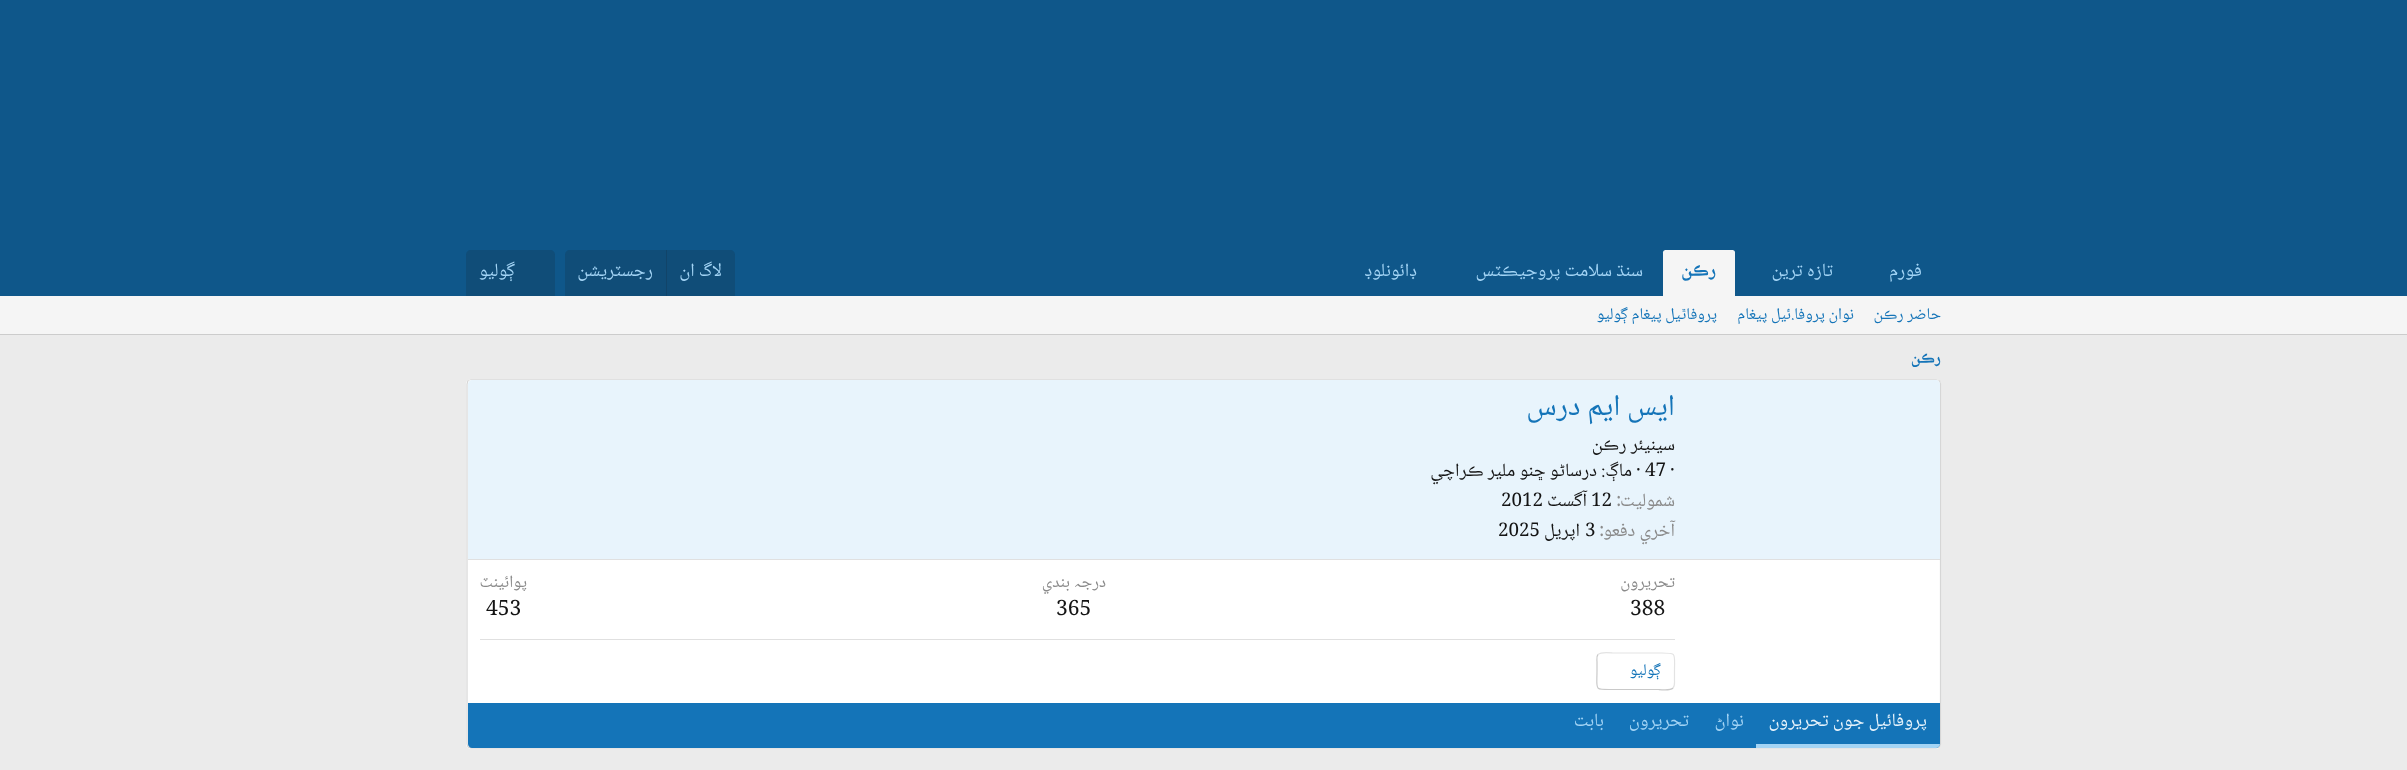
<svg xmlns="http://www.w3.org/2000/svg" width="2407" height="770">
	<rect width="100%" height="100%" fill="#EBEBEB" />
	<rect x="0" y="0" width="2407" height="296" fill="#0F578A" />
	<g font-family="Noto Naskh Arabic" font-size="18.75" direction="rtl" fill="#A3D4F5">
		<text x="1922" y="276">فورم</text>
		<text x="1833" y="276">تازہ ترين</text>
	</g>
	<path d="M1665.5 250H1732.5C1734 250 1735 251 1735 252.5V296H1663V252.5C1663 251 1664 250 1665.5 250Z" fill="#F5F5F5" />
	<text x="1716" y="276" font-family="Noto Naskh Arabic" font-size="18.75" font-weight="700" direction="rtl" fill="#1474B8">رڪن</text>
	<g font-family="Noto Naskh Arabic" font-size="18.75" direction="rtl" fill="#A3D4F5">
		<text x="1643" y="276">سنڌ سلامت پروجيڪٽس</text>
		<text x="1417" y="276">ڊائونلوڊ</text>
	</g>
	<path d="M570 250H730C733 250 735 252 735 255V296H565V255C565 252 567 250 570 250Z" fill="#104D78" />
	<text x="722" y="276" font-family="Noto Naskh Arabic" font-size="18.75" direction="rtl" fill="#A3D4F5">لاگ ان</text>
	<rect x="666" y="250" width="1" height="46" fill="#114469" />
	<text x="653" y="276" font-family="Noto Naskh Arabic" font-size="18.75" direction="rtl" fill="#A3D4F5">رجسٽريشن</text>
	<path d="M471 250H550C553 250 555 252 555 255V296H466V255C466 252 468 250 471 250Z" fill="#104D78" />
	<text x="515" y="276" font-family="Noto Naskh Arabic" font-size="18.75" direction="rtl" fill="#A3D4F5">ڳوليو</text>
	<rect x="0" y="296" width="2407" height="38" fill="#F5F5F5" />
	<rect x="0" y="334" width="2407" height="1" fill="#CCCCCC" />
	<g font-family="Noto Naskh Arabic" font-size="16.25" direction="rtl" fill="#1474B8">
		<text x="1941" y="319">حاضر رڪن</text>
		<text x="1854" y="319">نوان پروفا.ئيل پيغام</text>
		<text x="1717" y="319">پروفاٿيل پيغام ڳوليو</text>
	</g>
	<text x="1941" y="363" font-family="Noto Naskh Arabic" font-size="16.25" font-weight="700" direction="rtl" fill="#1474B8">رڪن</text>
	<rect x="466" y="379" width="1475" height="370" rx="5" fill="#FFFFFF" />
	<path d="M468 380.5L471 379.5H1936L1939.5 380.5" fill="none" stroke="#E0E0E0" stroke-width="1.2" />
	<path d="M1939.5 380.5L1940.5 384V744L1939.5 747" fill="none" stroke="#D6D6D6" stroke-width="1.2" />
	<path d="M1939.5 747L1936 748H471L468 747" fill="none" stroke="#CCCCCC" stroke-width="1.2" />
	<path d="M468 747L467 744V384L468 380.5" fill="none" stroke="#D6D6D6" stroke-width="1.2" />
	<path d="M472 380H1936C1938 380 1940 382 1940 384V560H468V384C468 382 470 380 472 380Z" fill="#E8F4FC" />
	<rect x="468" y="559" width="1472" height="1" fill="#E0E0E0" />
	<text x="1675" y="415" font-family="Noto Naskh Arabic" font-size="30" direction="rtl" fill="#1474B8">ايس ايم درس</text>
	<text x="1675" y="450" font-family="Noto Naskh Arabic" font-size="18.75" direction="rtl" fill="#141414">سينيئر رڪن</text>
	<g font-family="Noto Naskh Arabic" font-size="18.75" fill="#141414">
		<text x="1670" y="476">·</text>
		<text x="1645" y="476">47</text>
		<text x="1636" y="476">·</text>
	</g>
	<g font-family="Noto Naskh Arabic" font-size="18.75" direction="rtl" fill="#141414">
		<text x="1632" y="476">ماڳ:</text>
		<text x="1597" y="476">درساڻو ڇنو ملير ڪراچي</text>
	</g>
	<text x="1675" y="506" font-family="Noto Naskh Arabic" font-size="18.75" direction="rtl" fill="#8A8A8A">شموليت</text>
	<text x="1616" y="506" font-family="Noto Naskh Arabic" font-size="18.75" fill="#8A8A8A">:</text>
	<text x="1591" y="506" font-family="Noto Naskh Arabic" font-size="18.75" fill="#141414">12</text>
	<text x="1587" y="506" font-family="Noto Naskh Arabic" font-size="18.75" direction="rtl" fill="#141414">آگسٽ</text>
	<text x="1501" y="506" font-family="Noto Naskh Arabic" font-size="18.75" fill="#141414">2012</text>
	<text x="1675" y="536" font-family="Noto Naskh Arabic" font-size="18.75" direction="rtl" fill="#8A8A8A">آخري دفعو</text>
	<text x="1599" y="536" font-family="Noto Naskh Arabic" font-size="18.75" fill="#8A8A8A">:</text>
	<text x="1585" y="536" font-family="Noto Naskh Arabic" font-size="18.75" fill="#141414">3</text>
	<text x="1580" y="536" font-family="Noto Naskh Arabic" font-size="18.75" direction="rtl" fill="#141414">اپريل</text>
	<text x="1498" y="536" font-family="Noto Naskh Arabic" font-size="18.75" fill="#141414">2025</text>
	<text x="1675" y="587" font-family="Noto Naskh Arabic" font-size="17" direction="rtl" fill="#8A8A8A">تحريرون</text>
	<text x="1630" y="615" font-family="Noto Naskh Arabic" font-size="21" fill="#141414">388</text>
	<text x="1106" y="587" font-family="Noto Naskh Arabic" font-size="17" direction="rtl" fill="#8A8A8A">درجہ بندي</text>
	<text x="1056" y="615" font-family="Noto Naskh Arabic" font-size="21" fill="#141414">365</text>
	<text x="527" y="587" font-family="Noto Naskh Arabic" font-size="17" direction="rtl" fill="#8A8A8A">پوائينٽ</text>
	<text x="486" y="615" font-family="Noto Naskh Arabic" font-size="21" fill="#141414">453</text>
	<rect x="480" y="639" width="1195" height="1" fill="#E0E0E0" />
	<path d="M1598 654.5C1601.5 651.5 1612 653 1612.5 653H1658.5C1677.5 653 1674.5 652 1674.5 671V680.5C1674.5 683 1675 686 1673 688" fill="none" stroke="#E3E3E3" stroke-width="1.2" />
	<path d="M1673 688C1670 691 1659 689.5 1658.5 689.5H1612.5C1593.5 689.5 1597 690.5 1597 671V662C1597 659.5 1596 656.5 1598 654.5" fill="none" stroke="#C9C9C9" stroke-width="1.2" />
	<text x="1661" y="675" font-family="Noto Naskh Arabic" font-size="16.25" direction="rtl" fill="#1474B8">ڳوليو</text>
	<path d="M468 703H1940V744C1940 746 1938 748 1936 748H472C470 748 468 746 468 744Z" fill="#1474B8" />
	<path d="M1756 744H1940C1940 746 1938 748 1936 748H1756Z" fill="#A3D4F5" />
	<text x="1927" y="726" font-family="Noto Naskh Arabic" font-size="18.75" direction="rtl" fill="#E8F4FC">پروفائيل جون تحريرون</text>
	<g font-family="Noto Naskh Arabic" font-size="18.75" direction="rtl" fill="#A3D4F5">
		<text x="1744" y="726">نواڻ</text>
		<text x="1689" y="726">تحريرون</text>
		<text x="1604" y="726">بابت</text>
	</g>
</svg>
